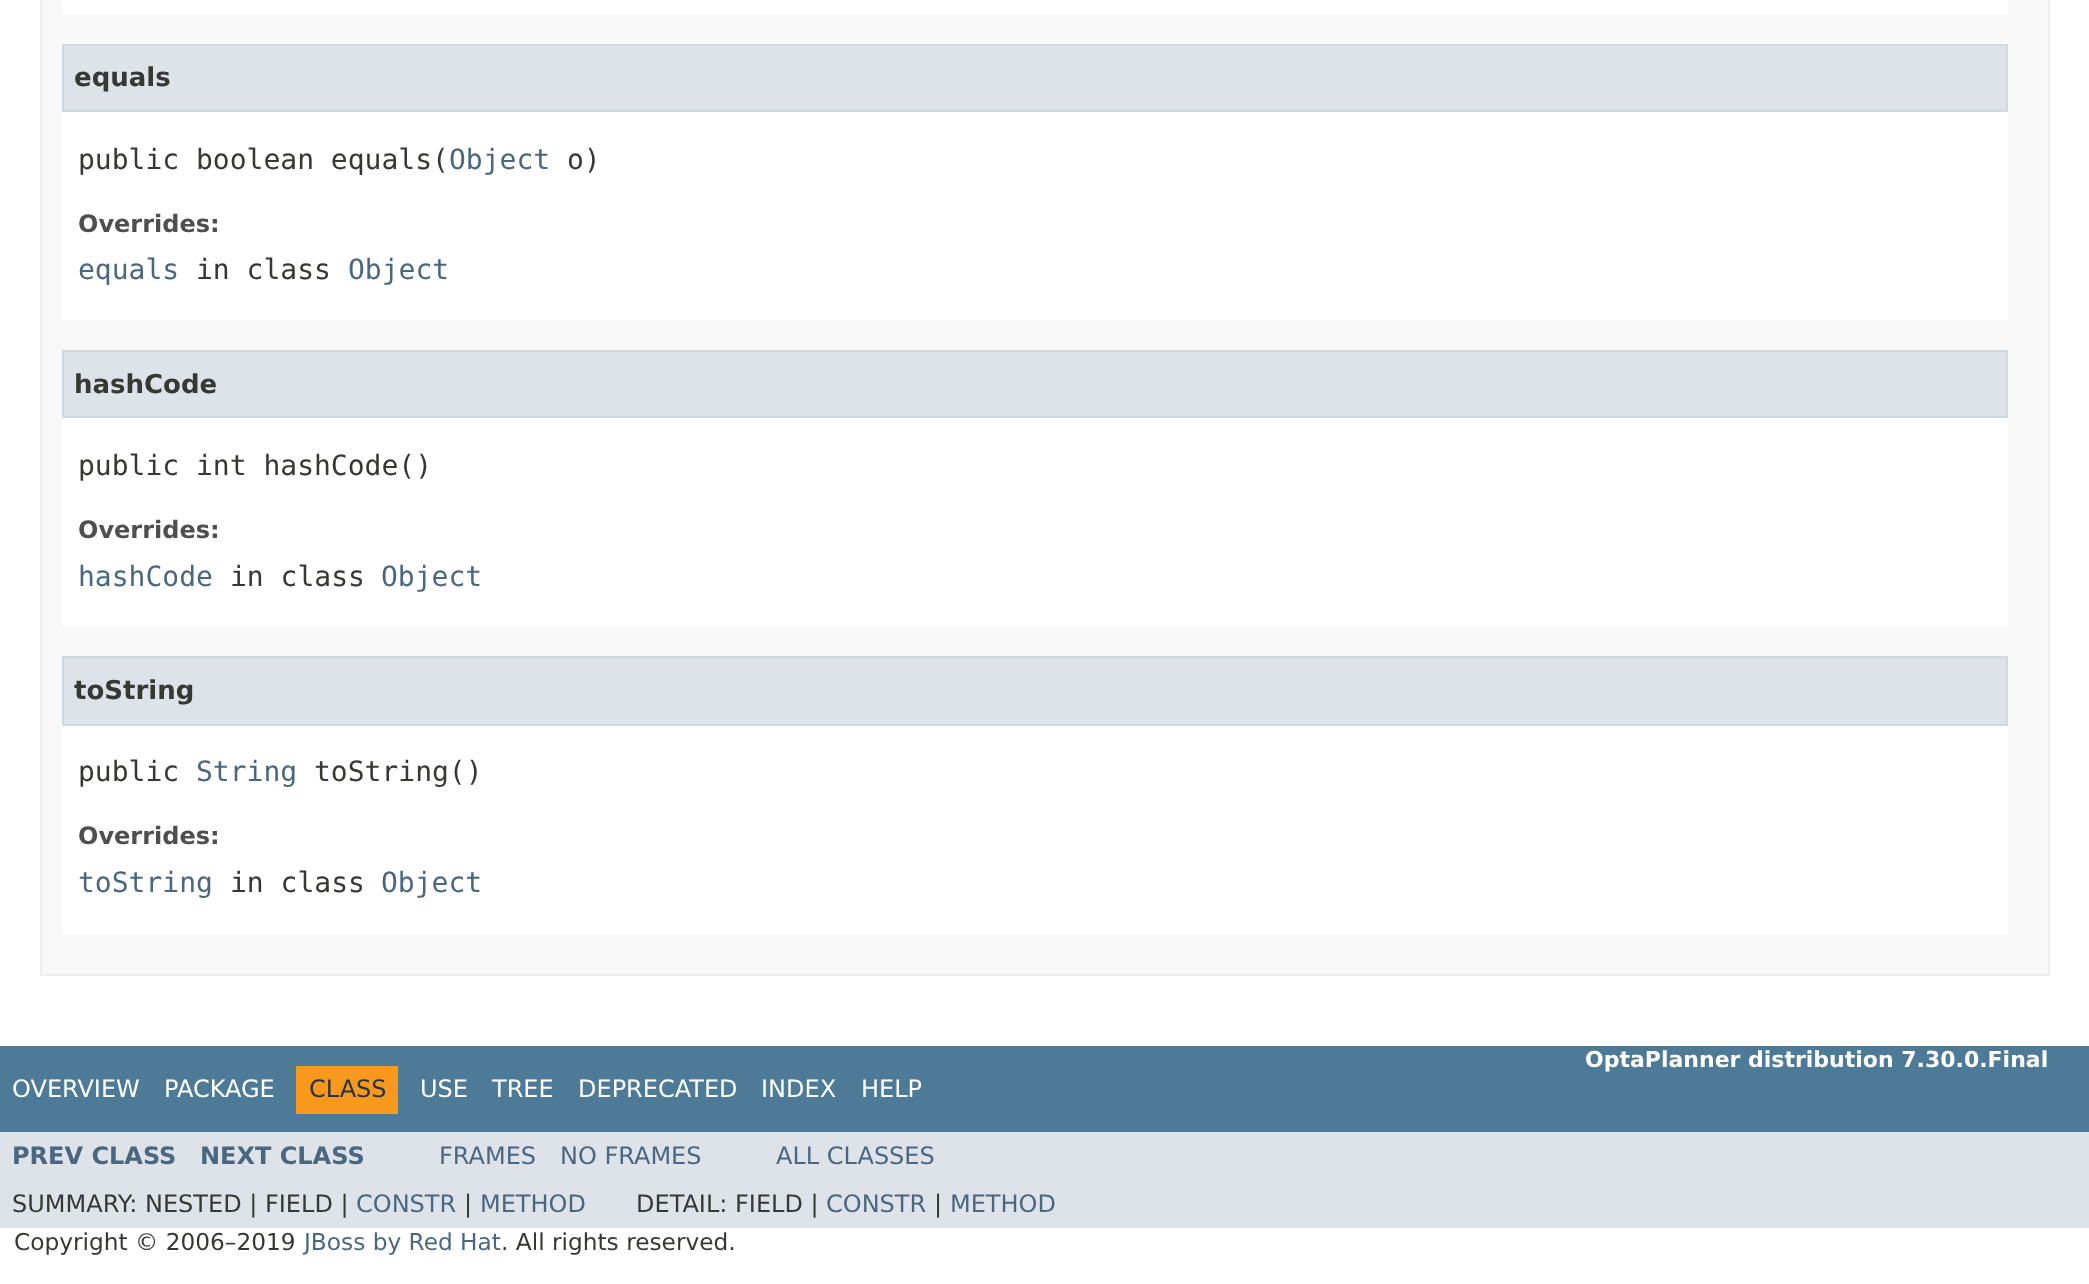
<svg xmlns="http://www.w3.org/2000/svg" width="2089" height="1284">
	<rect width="100%" height="100%" fill="#FFFFFF" />
	<rect x="41" y="-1" width="2008" height="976" fill="#F8F8F8" stroke="#EDEDED" stroke-width="2" />
	<rect x="62" y="0" width="1946" height="14" fill="#FFFFFF" />
	<rect x="62" y="112" width="1946" height="208" fill="#FFFFFF" />
	<rect x="63" y="45" width="1944" height="66" fill="#DEE3E9" stroke="#D0D9E0" stroke-width="2" />
	<text x="74" y="86" font-family="DejaVu Sans" font-size="26" font-weight="700" fill="#353833">equals</text>
	<text x="78" y="169" font-family="DejaVu Sans Mono" font-size="28" fill="#353833">public boolean equals(</text>
	<text x="449" y="169" font-family="DejaVu Sans Mono" font-size="28" fill="#4A6782">Object</text>
	<text x="567" y="169" font-family="DejaVu Sans Mono" font-size="28" fill="#353833">o)</text>
	<text x="78" y="232" font-family="DejaVu Sans" font-size="24" font-weight="700" fill="#4E4E4E">Overrides:</text>
	<text x="78" y="279" font-family="DejaVu Sans Mono" font-size="28" fill="#4A6782">equals</text>
	<text x="196" y="279" font-family="DejaVu Sans Mono" font-size="28" fill="#353833">in class</text>
	<text x="348" y="279" font-family="DejaVu Sans Mono" font-size="28" fill="#4A6782">Object</text>
	<rect x="62" y="418" width="1946" height="208" fill="#FFFFFF" />
	<rect x="63" y="351" width="1944" height="66" fill="#DEE3E9" stroke="#D0D9E0" stroke-width="2" />
	<text x="74" y="393" font-family="DejaVu Sans" font-size="26" font-weight="700" fill="#353833">hashCode</text>
	<text x="78" y="475" font-family="DejaVu Sans Mono" font-size="28" fill="#353833">public int hashCode()</text>
	<text x="78" y="538" font-family="DejaVu Sans" font-size="24" font-weight="700" fill="#4E4E4E">Overrides:</text>
	<text x="78" y="586" font-family="DejaVu Sans Mono" font-size="28" fill="#4A6782">hashCode</text>
	<text x="230" y="586" font-family="DejaVu Sans Mono" font-size="28" fill="#353833">in class</text>
	<text x="381" y="586" font-family="DejaVu Sans Mono" font-size="28" fill="#4A6782">Object</text>
	<rect x="62" y="726" width="1946" height="208" fill="#FFFFFF" />
	<rect x="63" y="657" width="1944" height="68" fill="#DEE3E9" stroke="#D0D9E0" stroke-width="2" />
	<text x="74" y="699" font-family="DejaVu Sans" font-size="26" font-weight="700" fill="#353833">toString</text>
	<text x="78" y="781" font-family="DejaVu Sans Mono" font-size="28" fill="#353833">public</text>
	<text x="196" y="781" font-family="DejaVu Sans Mono" font-size="28" fill="#4A6782">String</text>
	<text x="314" y="781" font-family="DejaVu Sans Mono" font-size="28" fill="#353833">toString()</text>
	<text x="78" y="844" font-family="DejaVu Sans" font-size="24" font-weight="700" fill="#4E4E4E">Overrides:</text>
	<text x="78" y="892" font-family="DejaVu Sans Mono" font-size="28" fill="#4A6782">toString</text>
	<text x="230" y="892" font-family="DejaVu Sans Mono" font-size="28" fill="#353833">in class</text>
	<text x="381" y="892" font-family="DejaVu Sans Mono" font-size="28" fill="#4A6782">Object</text>
	<rect x="0" y="1046" width="2089" height="86" fill="#4D7A97" />
	<text x="1585" y="1067" font-family="DejaVu Sans" font-size="22" font-weight="700" fill="#FFFFFF">OptaPlanner distribution 7.30.0.Final</text>
	<g font-family="DejaVu Sans" font-size="24" fill="#FFFFFF">
		<text x="12" y="1097">OVERVIEW</text>
		<text x="164" y="1097">PACKAGE</text>
	</g>
	<rect x="296" y="1066" width="102" height="48" fill="#F8981D" />
	<text x="309" y="1097" font-family="DejaVu Sans" font-size="24" fill="#253441">CLASS</text>
	<g font-family="DejaVu Sans" font-size="24" fill="#FFFFFF">
		<text x="420" y="1097">USE</text>
		<text x="492" y="1097">TREE</text>
		<text x="578" y="1097">DEPRECATED</text>
		<text x="761" y="1097">INDEX</text>
		<text x="861" y="1097">HELP</text>
	</g>
	<rect x="0" y="1132" width="2089" height="96" fill="#DEE3E9" />
	<g font-family="DejaVu Sans" font-size="24" font-weight="700" fill="#4A6782">
		<text x="12" y="1164">PREV CLASS</text>
		<text x="200" y="1164">NEXT CLASS</text>
	</g>
	<g font-family="DejaVu Sans" font-size="24" fill="#4A6782">
		<text x="439" y="1164">FRAMES</text>
		<text x="560" y="1164">NO FRAMES</text>
		<text x="776" y="1164">ALL CLASSES</text>
	</g>
	<text x="12" y="1212" font-family="DejaVu Sans" font-size="24" fill="#353833">SUMMARY: NESTED | FIELD |</text>
	<text x="356" y="1212" font-family="DejaVu Sans" font-size="24" fill="#4A6782">CONSTR</text>
	<text x="464" y="1212" font-family="DejaVu Sans" font-size="24" fill="#353833">|</text>
	<text x="480" y="1212" font-family="DejaVu Sans" font-size="24" fill="#4A6782">METHOD</text>
	<text x="636" y="1212" font-family="DejaVu Sans" font-size="24" fill="#353833">DETAIL: FIELD |</text>
	<text x="826" y="1212" font-family="DejaVu Sans" font-size="24" fill="#4A6782">CONSTR</text>
	<text x="934" y="1212" font-family="DejaVu Sans" font-size="24" fill="#353833">|</text>
	<text x="950" y="1212" font-family="DejaVu Sans" font-size="24" fill="#4A6782">METHOD</text>
	<text x="14" y="1250" font-family="DejaVu Sans" font-size="23.25" fill="#353833">Copyright © 2006–2019</text>
	<text x="304" y="1250" font-family="DejaVu Sans" font-size="23.25" fill="#4A6782">JBoss by Red Hat</text>
	<text x="501" y="1250" font-family="DejaVu Sans" font-size="23.25" fill="#353833">. All rights reserved.</text>
</svg>
